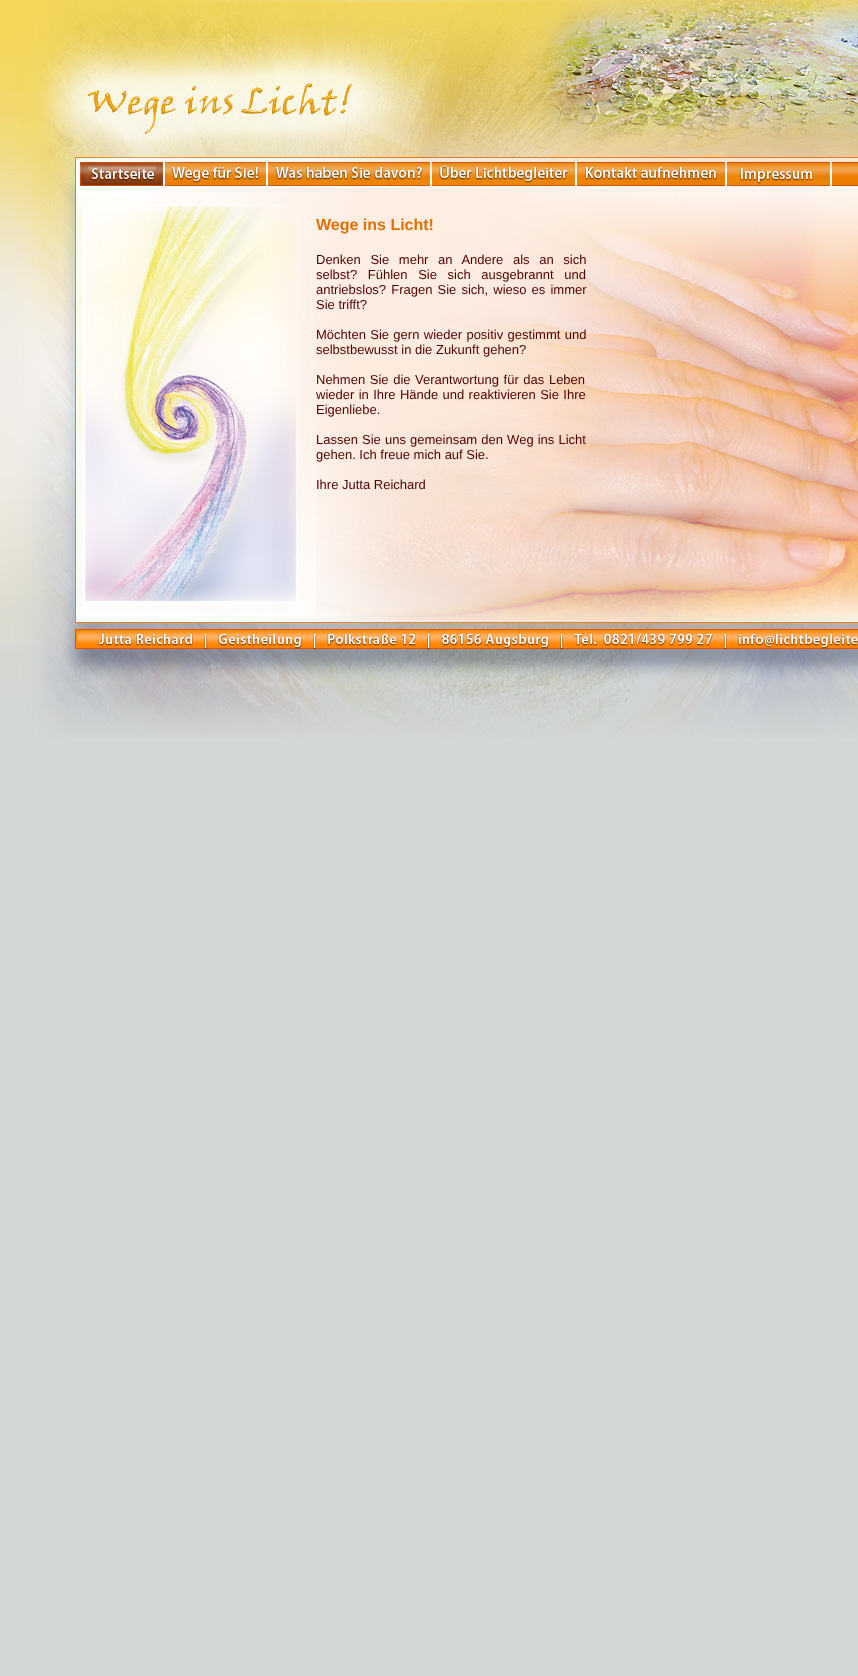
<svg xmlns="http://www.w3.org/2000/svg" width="858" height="1676">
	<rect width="100%" height="100%" fill="#FFFFFF" />
	<image x="0" y="737" width="858" height="939" href="assets/img1.png" />
	<image x="0" y="0" width="858" height="737" href="assets/img2.png" />
	<image x="80" y="162" width="83" height="24" href="assets/img3.png" />
	<image x="165" y="162" width="101" height="24" href="assets/img4.png" />
	<image x="268" y="162" width="162" height="24" href="assets/img5.png" />
	<image x="432" y="162" width="143" height="24" href="assets/img6.png" />
	<image x="577" y="162" width="148" height="24" href="assets/img7.png" />
	<image x="727" y="162" width="103" height="24" href="assets/img8.png" />
	<image x="832" y="162" width="26" height="24" href="assets/img9.png" />
	<text x="316" y="230" font-family="Liberation Sans" font-size="16" font-weight="700" fill="#E27000">Wege ins Licht!</text>
	<g font-family="Liberation Sans" font-size="13" fill="#500000">
		<text x="316" y="264" word-spacing="6">Denken Sie mehr an Andere als an sich</text>
		<text x="316" y="279" word-spacing="7">selbst? Fühlen Sie sich ausgebrannt und</text>
		<text x="316" y="294" word-spacing="1.5">antriebslos? Fragen Sie sich, wieso es immer</text>
		<text x="316" y="309">Sie trifft?</text>
		<text x="316" y="339" word-spacing="0.75">Möchten Sie gern wieder positiv gestimmt und</text>
		<text x="316" y="354">selbstbewusst in die Zukunft gehen?</text>
		<text x="316" y="384" word-spacing="1">Nehmen Sie die Verantwortung für das Leben</text>
		<text x="316" y="399" word-spacing="0.75">wieder in Ihre Hände und reaktivieren Sie Ihre</text>
		<text x="316" y="414">Eigenliebe.</text>
		<text x="316" y="444" word-spacing="0.5">Lassen Sie uns gemeinsam den Weg ins Licht</text>
		<text x="316" y="459">gehen. Ich freue mich auf Sie.</text>
		<text x="316" y="489">Ihre Jutta Reichard</text>
	</g>
</svg>
